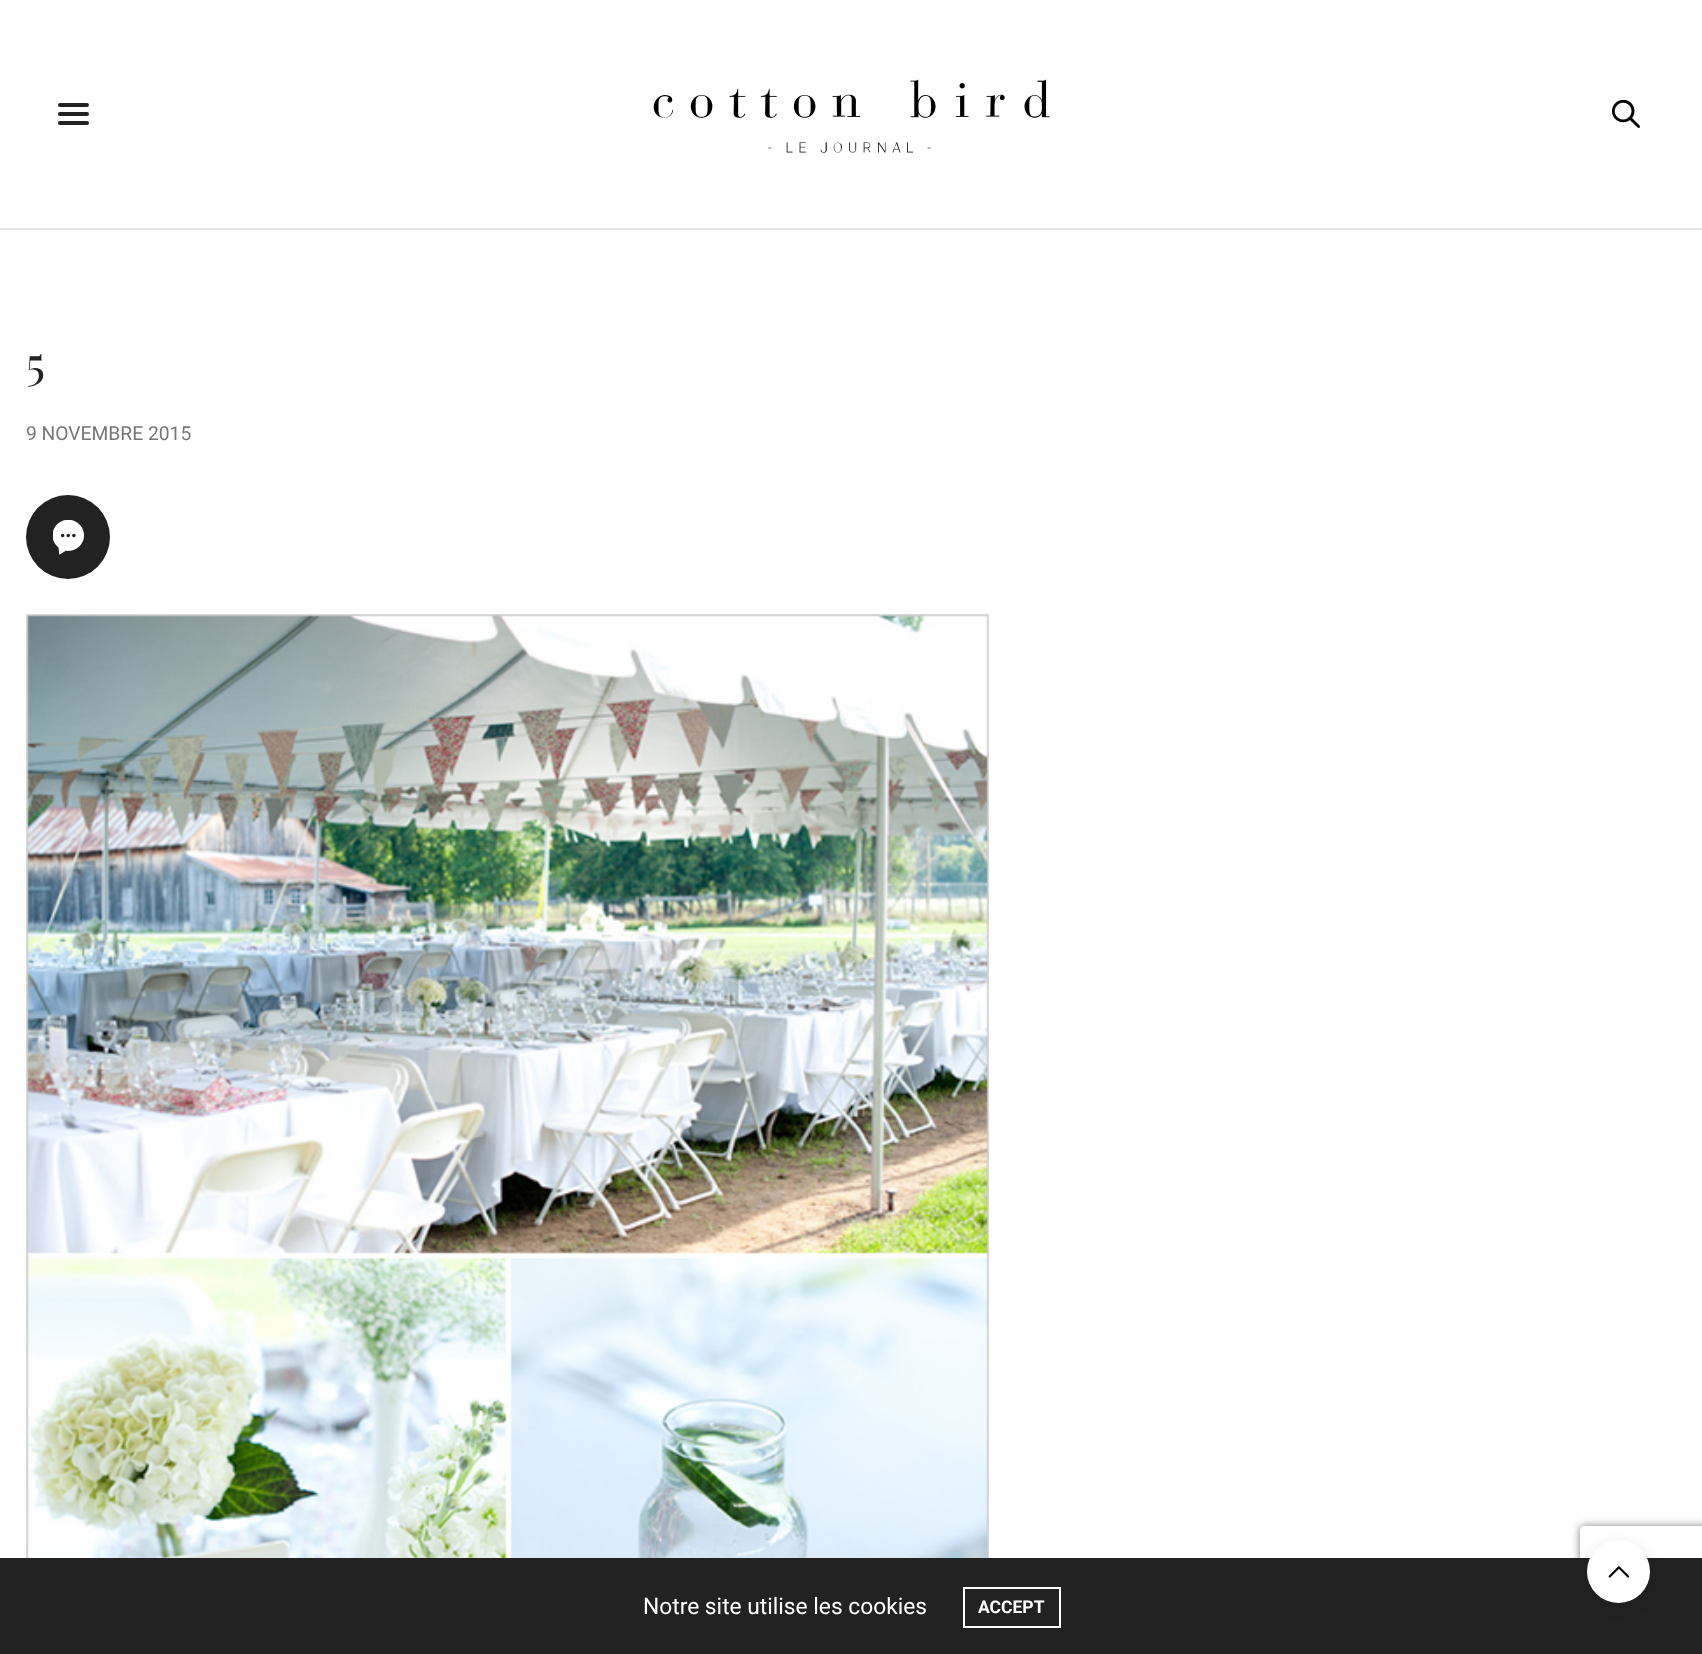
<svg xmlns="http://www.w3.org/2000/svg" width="1702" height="1654">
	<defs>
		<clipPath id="clip1"><path d="M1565 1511H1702V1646H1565ZM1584 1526H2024C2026 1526 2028 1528 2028 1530V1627C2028 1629 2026 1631 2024 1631H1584C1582 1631 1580 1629 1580 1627V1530C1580 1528 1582 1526 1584 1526Z" clip-rule="evenodd" /></clipPath>
	</defs>
	<rect width="100%" height="100%" fill="#FFFFFF" />
	<rect x="0" y="228" width="1702" height="2" fill="#E6E6E6" />
	<rect x="58" y="103" width="31" height="4" rx="2" fill="#222222" />
	<rect x="58" y="112" width="31" height="4" rx="2" fill="#222222" />
	<rect x="58" y="121" width="31" height="4" rx="2" fill="#222222" />
	<image x="653" y="79" width="397" height="74" href="assets/img1.png" />
	<image x="1612" y="100" width="28" height="28" href="assets/img2.png" />
	<text x="26" y="380" font-family="Playfair Display" font-size="46" fill="#222222">5</text>
	<text x="26" y="440" font-family="Roboto" font-size="19.25" fill="#767676">9 NOVEMBRE 2015</text>
	<circle cx="68" cy="537" r="42" fill="#222222" />
	<image x="53" y="520" width="31" height="35" href="assets/img3.png" />
	<image x="26" y="614" width="963" height="944" href="assets/img4.png" />
	<g clip-path="url(#clip1)">
		<rect x="1580" y="1526" width="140" height="105" rx="4" fill="#808080" filter="blur(4.5px)" />
	</g>
	<rect x="0" y="1558" width="1702" height="96" fill="#222222" />
	<text x="643" y="1614" font-family="Roboto" font-size="22.75" fill="#FFFFFF">Notre site utilise les cookies</text>
	<rect x="964" y="1588" width="96" height="39" fill="none" stroke="#FFFFFF" stroke-width="2" />
	<text x="978" y="1613" font-family="Roboto" font-size="17.5" font-weight="700" fill="#FFFFFF">ACCEPT</text>
	<rect x="1587" y="1544" width="63" height="63" rx="31.5" fill="#000000" fill-opacity="0.1" filter="blur(7px)" />
	<circle cx="1618.5" cy="1571.5" r="31.5" fill="#FFFFFF" />
	<image x="1608" y="1566" width="21" height="12" href="assets/img5.png" />
</svg>
